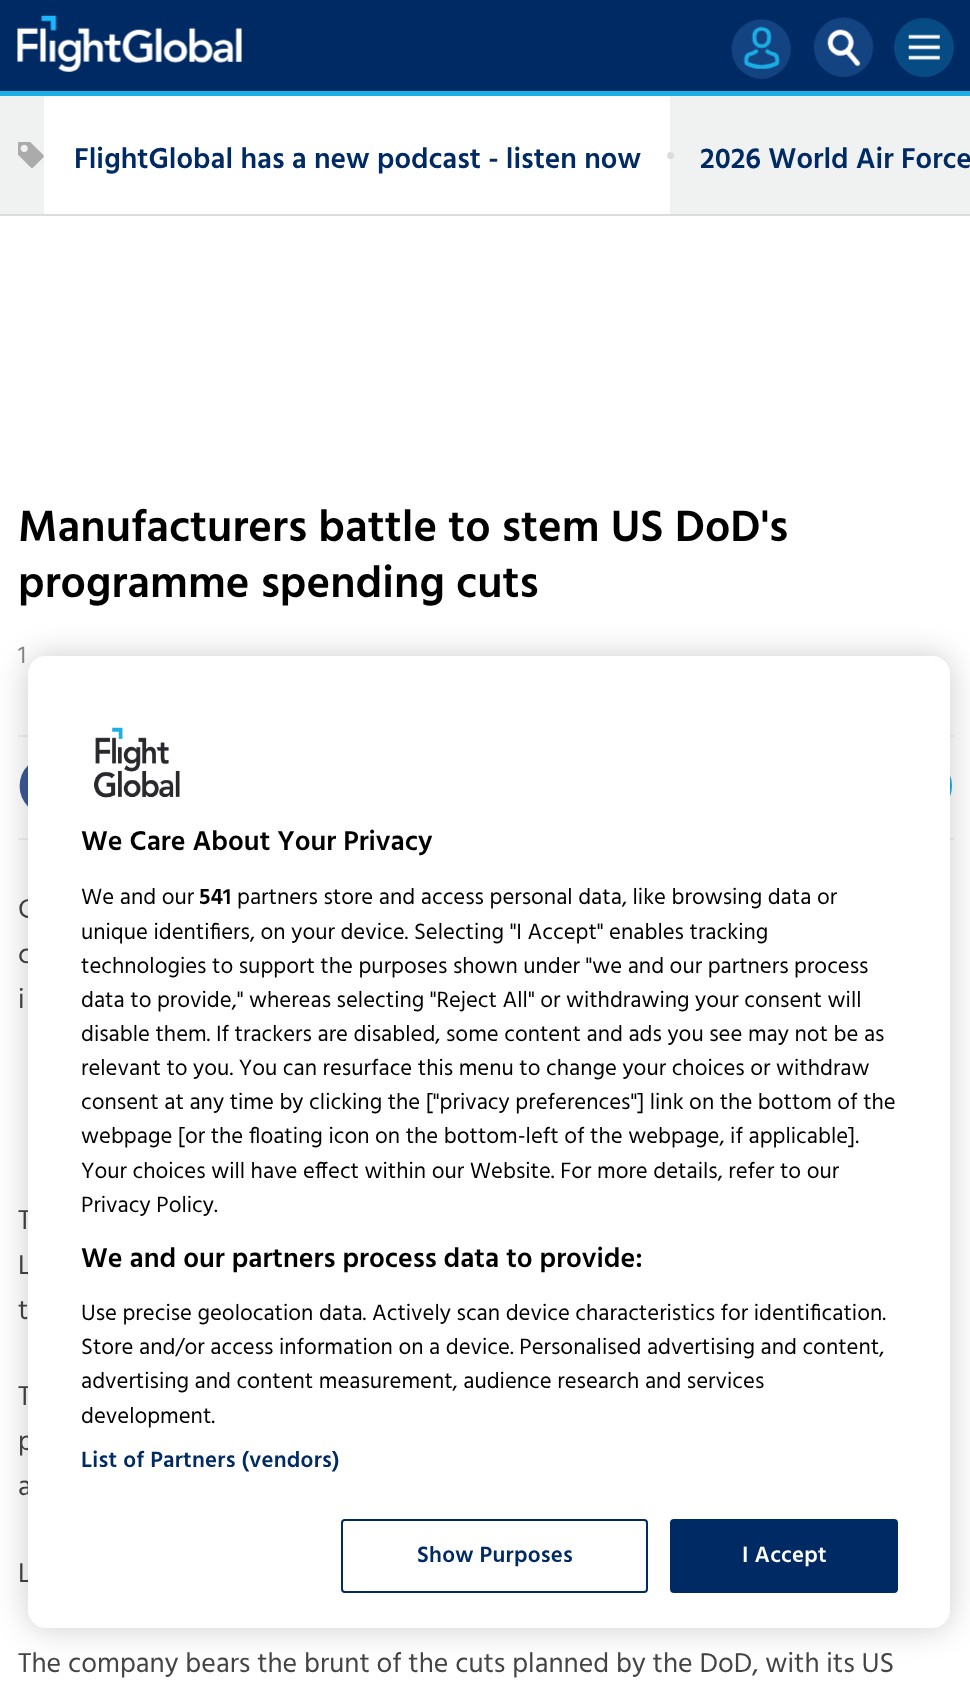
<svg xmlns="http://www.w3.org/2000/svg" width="970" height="1682">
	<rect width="100%" height="100%" fill="#FFFFFF" />
	<rect x="0" y="0" width="970" height="91" fill="#002A63" />
	<rect x="0" y="91" width="970" height="5" fill="#1CAFE5" />
	<image x="17" y="15" width="225" height="57" href="assets/img1.png" />
	<image x="731" y="19" width="61" height="60" href="assets/img2.png" />
	<image x="813" y="17" width="61" height="61" href="assets/img3.png" />
	<rect x="894" y="18" width="60" height="59" rx="29.5" fill="#074B84" />
	<image x="908" y="34" width="32" height="26" href="assets/img4.png" />
	<rect x="0" y="96" width="970" height="118" fill="#F0F2F2" />
	<rect x="0" y="214" width="970" height="2" fill="#DCDCDC" />
	<image x="18" y="142" width="26" height="26" href="assets/img5.png" />
	<rect x="44" y="96" width="626" height="118" fill="#FFFFFF" />
	<text x="74" y="168" font-family="Hind" font-size="29.4" font-weight="600" fill="#002A63">FlightGlobal has a new podcast - listen now</text>
	<circle cx="670.5" cy="155.5" r="3.5" fill="#DCDCDC" />
	<text x="700" y="168" font-family="Hind" font-size="29.4" font-weight="600" fill="#002A63">2026 World Air Force</text>
	<g font-family="Hind" font-size="44.9" font-weight="600" fill="#000000">
		<text x="18" y="541">Manufacturers battle to stem US DoD's</text>
		<text x="18" y="597">programme spending cuts</text>
	</g>
	<text x="18" y="663" font-family="Hind" font-size="25" fill="#888888">1</text>
	<rect x="18" y="735" width="936" height="2" fill="#F0F2F2" />
	<rect x="18" y="838" width="936" height="2" fill="#F0F2F2" />
	<image x="19" y="765" width="9" height="42" href="assets/img6.png" />
	<image x="950" y="775" width="2" height="22" href="assets/img7.png" />
	<g font-family="Hind" font-size="28" fill="#444444">
		<text x="18" y="918">C</text>
		<text x="18" y="963">c</text>
		<text x="18" y="1008">i</text>
		<text x="18" y="1229">T</text>
		<text x="18" y="1274">L</text>
		<text x="18" y="1319">t</text>
		<text x="18" y="1405">T</text>
		<text x="18" y="1450">p</text>
		<text x="18" y="1495">a</text>
		<text x="18" y="1582">L</text>
		<text x="18" y="1672">The company bears the brunt of the cuts planned by the DoD, with its US</text>
	</g>
	<rect x="28" y="656" width="922" height="972" rx="18" fill="#000000" fill-opacity="0.2" filter="blur(16px)" />
	<rect x="28" y="656" width="922" height="972" rx="18" fill="#FFFFFF" />
	<text x="81" y="850" font-family="Hind" font-size="28" font-weight="600" fill="#000000">We Care About Your Privacy</text>
	<text x="81" y="904" font-family="Hind" font-size="22.75" fill="#000000">We and our</text>
	<text x="199" y="904" font-family="Hind" font-size="22.75" font-weight="600" fill="#000000">541</text>
	<g font-family="Hind" font-size="22.75" fill="#000000">
		<text x="237" y="904">partners store and access personal data, like browsing data or</text>
		<text x="81" y="939">unique identifiers, on your device. Selecting "I Accept" enables tracking</text>
		<text x="81" y="973">technologies to support the purposes shown under "we and our partners process</text>
		<text x="81" y="1007">data to provide," whereas selecting "Reject All" or withdrawing your consent will</text>
		<text x="81" y="1041">disable them. If trackers are disabled, some content and ads you see may not be as</text>
		<text x="81" y="1075">relevant to you. You can resurface this menu to change your choices or withdraw</text>
		<text x="81" y="1109">consent at any time by clicking the ["privacy preferences"] link on the bottom of the</text>
		<text x="81" y="1143">webpage [or the floating icon on the bottom-left of the webpage, if applicable].</text>
		<text x="81" y="1178">Your choices will have effect within our Website. For more details, refer to our</text>
		<text x="81" y="1212">Privacy Policy.</text>
	</g>
	<text x="81" y="1267" font-family="Hind" font-size="28" font-weight="600" fill="#000000">We and our partners process data to provide:</text>
	<g font-family="Hind" font-size="22.75" fill="#000000">
		<text x="81" y="1320">Use precise geolocation data. Actively scan device characteristics for identification.</text>
		<text x="81" y="1354">Store and/or access information on a device. Personalised advertising and content,</text>
		<text x="81" y="1388">advertising and content measurement, audience research and services</text>
		<text x="81" y="1423">development.</text>
	</g>
	<text x="81" y="1467" font-family="Hind" font-size="22.75" font-weight="600" letter-spacing="0.25" fill="#002A63">List of Partners (vendors)</text>
	<image x="94" y="727" width="86" height="71" href="assets/img8.png" />
	<rect x="342" y="1520" width="305" height="72" rx="3" fill="none" stroke="#002A63" stroke-width="2" />
	<text x="417" y="1562" font-family="Hind" font-size="22.75" font-weight="600" letter-spacing="0.25" fill="#002A63">Show Purposes</text>
	<rect x="671" y="1520" width="226" height="72" rx="3" fill="#002A63" stroke="#002A63" stroke-width="2" />
	<text x="742" y="1562" font-family="Hind" font-size="22.75" font-weight="600" letter-spacing="0.25" fill="#FFFFFF">I Accept</text>
</svg>
